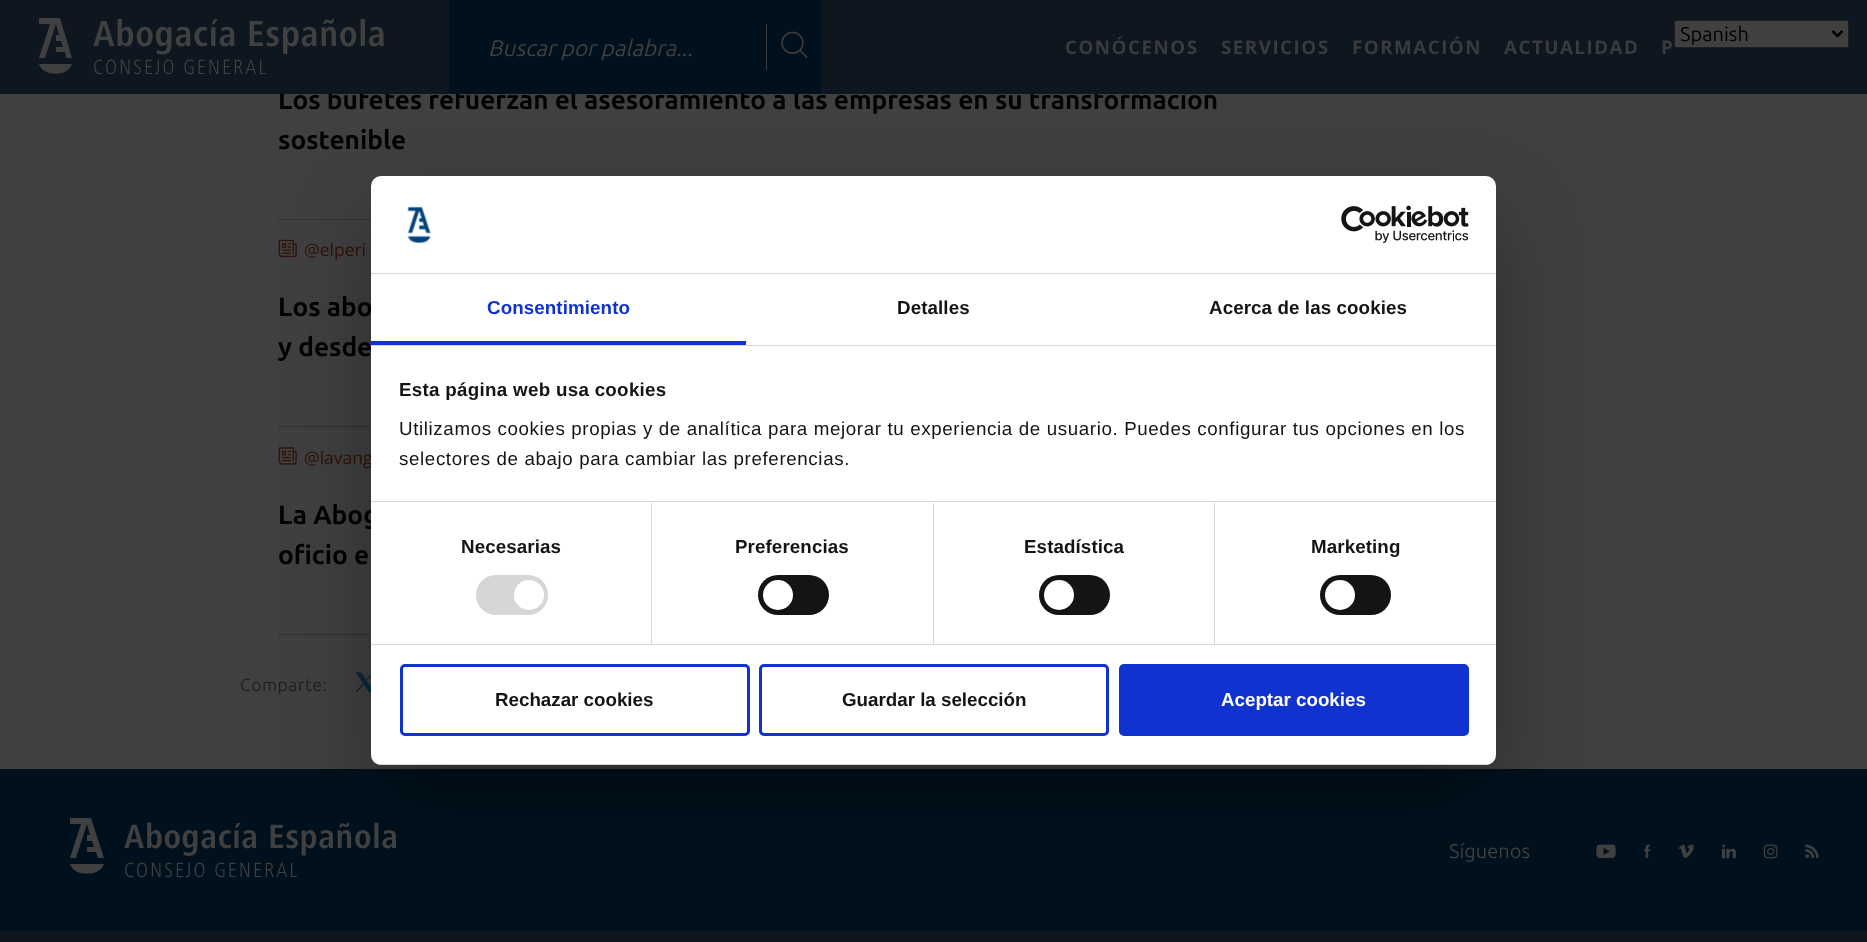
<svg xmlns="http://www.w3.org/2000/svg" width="1867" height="942">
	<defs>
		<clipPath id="clip1"><rect x="371" y="176" width="1125" height="589" rx="10" /></clipPath>
	</defs>
	<rect width="100%" height="100%" fill="#404040" />
	<text x="278" y="109" font-family="Ubuntu" font-size="26.25" font-weight="700" fill="#000000">Los bufetes refuerzan el asesoramiento a las empresas en su transformación</text>
	<rect x="0" y="0" width="1867" height="94" fill="#0E161F" />
	<path d="M72 64C68 77 43 77 39 64ZM39 18H60L72 58H66L65 52H56V47H63L61 41H56V35H59L56 24L45 58H39L50 24H39Z" fill="#404040" />
	<text x="93" y="46" font-family="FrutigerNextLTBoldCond" font-size="37.5" font-weight="700" letter-spacing="0.62" fill="#404040">Abogacía Española</text>
	<text x="93" y="74" font-family="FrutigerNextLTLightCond" font-size="21.25" font-weight="300" letter-spacing="2" fill="#404040">CONSEJO GENERAL</text>
	<rect x="449" y="0" width="372" height="94" fill="#00111D" />
	<text x="488" y="56" font-family="Ubuntu" font-size="22.5" font-style="italic" fill="#404040">Buscar por palabra...</text>
	<rect x="766" y="24" width="1" height="46" fill="#3A3B3C" />
	<image x="781" y="31" width="27" height="27" href="assets/img1.png" />
	<g font-family="Open Sans" font-size="18.75" font-weight="700" letter-spacing="1.5" fill="#3A3B3D">
		<text x="1065" y="54">CONÓCENOS</text>
		<text x="1221" y="54">SERVICIOS</text>
		<text x="1352" y="54">FORMACIÓN</text>
		<text x="1504" y="54">ACTUALIDAD</text>
		<text x="1661" y="54">P</text>
	</g>
	<rect x="1674.5" y="20.5" width="174" height="27" rx="2" fill="#404040" stroke="#1E1E1E" />
	<path d="M1832.5 31L1837.5 36L1842.5 31" fill="none" stroke="#000000" stroke-width="2.5" />
	<text x="1680" y="41" font-family="Ubuntu" font-size="20" fill="#000000">Spanish</text>
	<rect x="278" y="219" width="93" height="1" fill="#2C3235" />
	<text x="278" y="149" font-family="Ubuntu" font-size="26.25" font-weight="700" fill="#000000">sostenible</text>
	<rect x="278" y="426" width="93" height="1" fill="#2C3235" />
	<image x="278" y="239" width="19" height="19" href="assets/img2.png" />
	<text x="304" y="256" font-family="Open Sans" font-size="17.5" fill="#311205">@elperi</text>
	<g font-family="Ubuntu" font-size="26.25" font-weight="700" fill="#000000">
		<text x="278" y="316">Los abo</text>
		<text x="278" y="356">y desde</text>
	</g>
	<rect x="278" y="634" width="93" height="1" fill="#2C3235" />
	<image x="278" y="447" width="19" height="18" href="assets/img3.png" />
	<text x="304" y="464" font-family="Open Sans" font-size="17.5" fill="#311205">@lavang</text>
	<g font-family="Ubuntu" font-size="26.25" font-weight="700" fill="#000000">
		<text x="278" y="524">La Abog</text>
		<text x="278" y="564">oficio e</text>
	</g>
	<text x="240" y="691" font-family="Ubuntu" font-size="17.5" letter-spacing="0.5" fill="#1F1F20">Comparte:</text>
	<image x="355" y="672" width="16" height="21" href="assets/img4.png" />
	<rect x="0" y="931" width="1867" height="11" fill="#0E161F" />
	<rect x="0" y="769" width="1867" height="162" fill="#00111D" />
	<image x="1568" y="849" width="2" height="2" href="assets/img7.png" />
	<image x="1596" y="844" width="20" height="14" href="assets/img8.png" />
	<image x="1616" y="849" width="2" height="2" href="assets/img9.png" />
	<rect x="371" y="216" width="1125" height="589" rx="10" fill="#000000" fill-opacity="0.3" filter="blur(42.5px)" />
	<rect x="371" y="176" width="1125" height="589" rx="10" fill="#FFFFFF" />
	<rect x="371" y="273" width="1125" height="1" fill="#D6D6D6" />
	<image x="407" y="206" width="24" height="38" href="assets/img5.png" />
	<image x="1341" y="205" width="128" height="38" href="assets/img6.png" />
	<rect x="371" y="345" width="1125" height="1" fill="#D6D6D6" />
	<rect x="371" y="341" width="375" height="4" fill="#1032CF" />
	<text x="487" y="314" font-family="Liberation Sans" font-size="18.75" font-weight="700" letter-spacing="0.1" fill="#1032CF">Consentimiento</text>
	<g font-family="Liberation Sans" font-size="18.75" font-weight="700" letter-spacing="0.1" fill="#141414">
		<text x="897" y="314">Detalles</text>
		<text x="1209" y="314">Acerca de las cookies</text>
	</g>
	<rect x="371" y="501" width="1125" height="1" fill="#D6D6D6" />
	<text x="399" y="396" font-family="Liberation Sans" font-size="18.75" font-weight="700" letter-spacing="0.3" fill="#141414">Esta página web usa cookies</text>
	<g font-family="Liberation Sans" font-size="18.75" letter-spacing="0.62" fill="#141414">
		<text x="399" y="435">Utilizamos cookies propias y de analítica para mejorar tu experiencia de usuario. Puedes configurar tus opciones en los</text>
		<text x="399" y="465">selectores de abajo para cambiar las preferencias.</text>
	</g>
	<rect x="371" y="644" width="1125" height="1" fill="#D6D6D6" />
	<rect x="651" y="503" width="1" height="141" fill="#D6D6D6" />
	<text x="461" y="553" font-family="Liberation Sans" font-size="18.75" font-weight="700" letter-spacing="0.1" fill="#141414">Necesarias</text>
	<rect x="476" y="575" width="72" height="40" rx="20" fill="#D6D6D6" />
	<circle cx="529" cy="595" r="15" fill="#FFFFFF" />
	<rect x="933" y="503" width="1" height="141" fill="#D6D6D6" />
	<text x="735" y="553" font-family="Liberation Sans" font-size="18.75" font-weight="700" letter-spacing="0.1" fill="#141414">Preferencias</text>
	<rect x="758" y="575" width="71" height="40" rx="20" fill="#141414" />
	<circle cx="778" cy="595" r="15" fill="#FFFFFF" />
	<rect x="1214" y="503" width="1" height="141" fill="#D6D6D6" />
	<text x="1024" y="553" font-family="Liberation Sans" font-size="18.75" font-weight="700" letter-spacing="0.1" fill="#141414">Estadística</text>
	<rect x="1039" y="575" width="71" height="40" rx="20" fill="#141414" />
	<circle cx="1059" cy="595" r="15" fill="#FFFFFF" />
	<text x="1311" y="553" font-family="Liberation Sans" font-size="18.75" font-weight="700" letter-spacing="0.1" fill="#141414">Marketing</text>
	<rect x="1320" y="575" width="71" height="40" rx="20" fill="#141414" />
	<circle cx="1340" cy="595" r="15" fill="#FFFFFF" />
	<g clip-path="url(#clip1)">
		<rect x="371" y="764" width="1125" height="1" fill="#D6D6D6" />
	</g>
	<rect x="401.5" y="665.5" width="347" height="69" rx="3.5" fill="none" stroke="#1032CF" stroke-width="3" />
	<text x="495" y="706" font-family="Liberation Sans" font-size="18.75" font-weight="700" fill="#141414">Rechazar cookies</text>
	<rect x="760.5" y="665.5" width="347" height="69" rx="3.5" fill="none" stroke="#1032CF" stroke-width="3" />
	<text x="842" y="706" font-family="Liberation Sans" font-size="18.75" font-weight="700" fill="#141414">Guardar la selección</text>
	<rect x="1120.5" y="665.5" width="347" height="69" rx="3.5" fill="#1032CF" stroke="#1032CF" stroke-width="3" />
	<text x="1221" y="706" font-family="Liberation Sans" font-size="18.75" font-weight="700" fill="#FFFFFF">Aceptar cookies</text>
	<path d="M104 864C100 877 74 877 70 864ZM70 818H91L104 858H98L96 852H87V847H94L92 841H87V835H90L87 824L76 858H70L81 824H70Z" fill="#404040" />
	<text x="124" y="848" font-family="FrutigerNextLTBoldCond" font-size="35" font-weight="700" letter-spacing="0.62" fill="#404040">Abogacía Española</text>
	<text x="124" y="877" font-family="FrutigerNextLTLightCond" font-size="21.25" font-weight="300" letter-spacing="2" fill="#404040">CONSEJO GENERAL</text>
	<text x="1449" y="858" font-family="Ubuntu" font-size="20" fill="#404040">Síguenos</text>
	<image x="1643" y="844" width="8" height="14" href="assets/img10.png" />
	<image x="1650" y="849" width="2" height="2" href="assets/img11.png" />
	<image x="1678" y="844" width="16" height="14" href="assets/img12.png" />
	<image x="1693" y="849" width="2" height="2" href="assets/img13.png" />
	<image x="1722" y="844" width="14" height="15" href="assets/img14.png" />
	<image x="1736" y="849" width="2" height="2" href="assets/img15.png" />
	<image x="1763" y="844" width="15" height="15" href="assets/img16.png" />
	<image x="1777" y="849" width="2" height="2" href="assets/img17.png" />
	<image x="1805" y="844" width="14" height="14" href="assets/img18.png" />
	<image x="1818" y="849" width="2" height="2" href="assets/img19.png" />
</svg>
